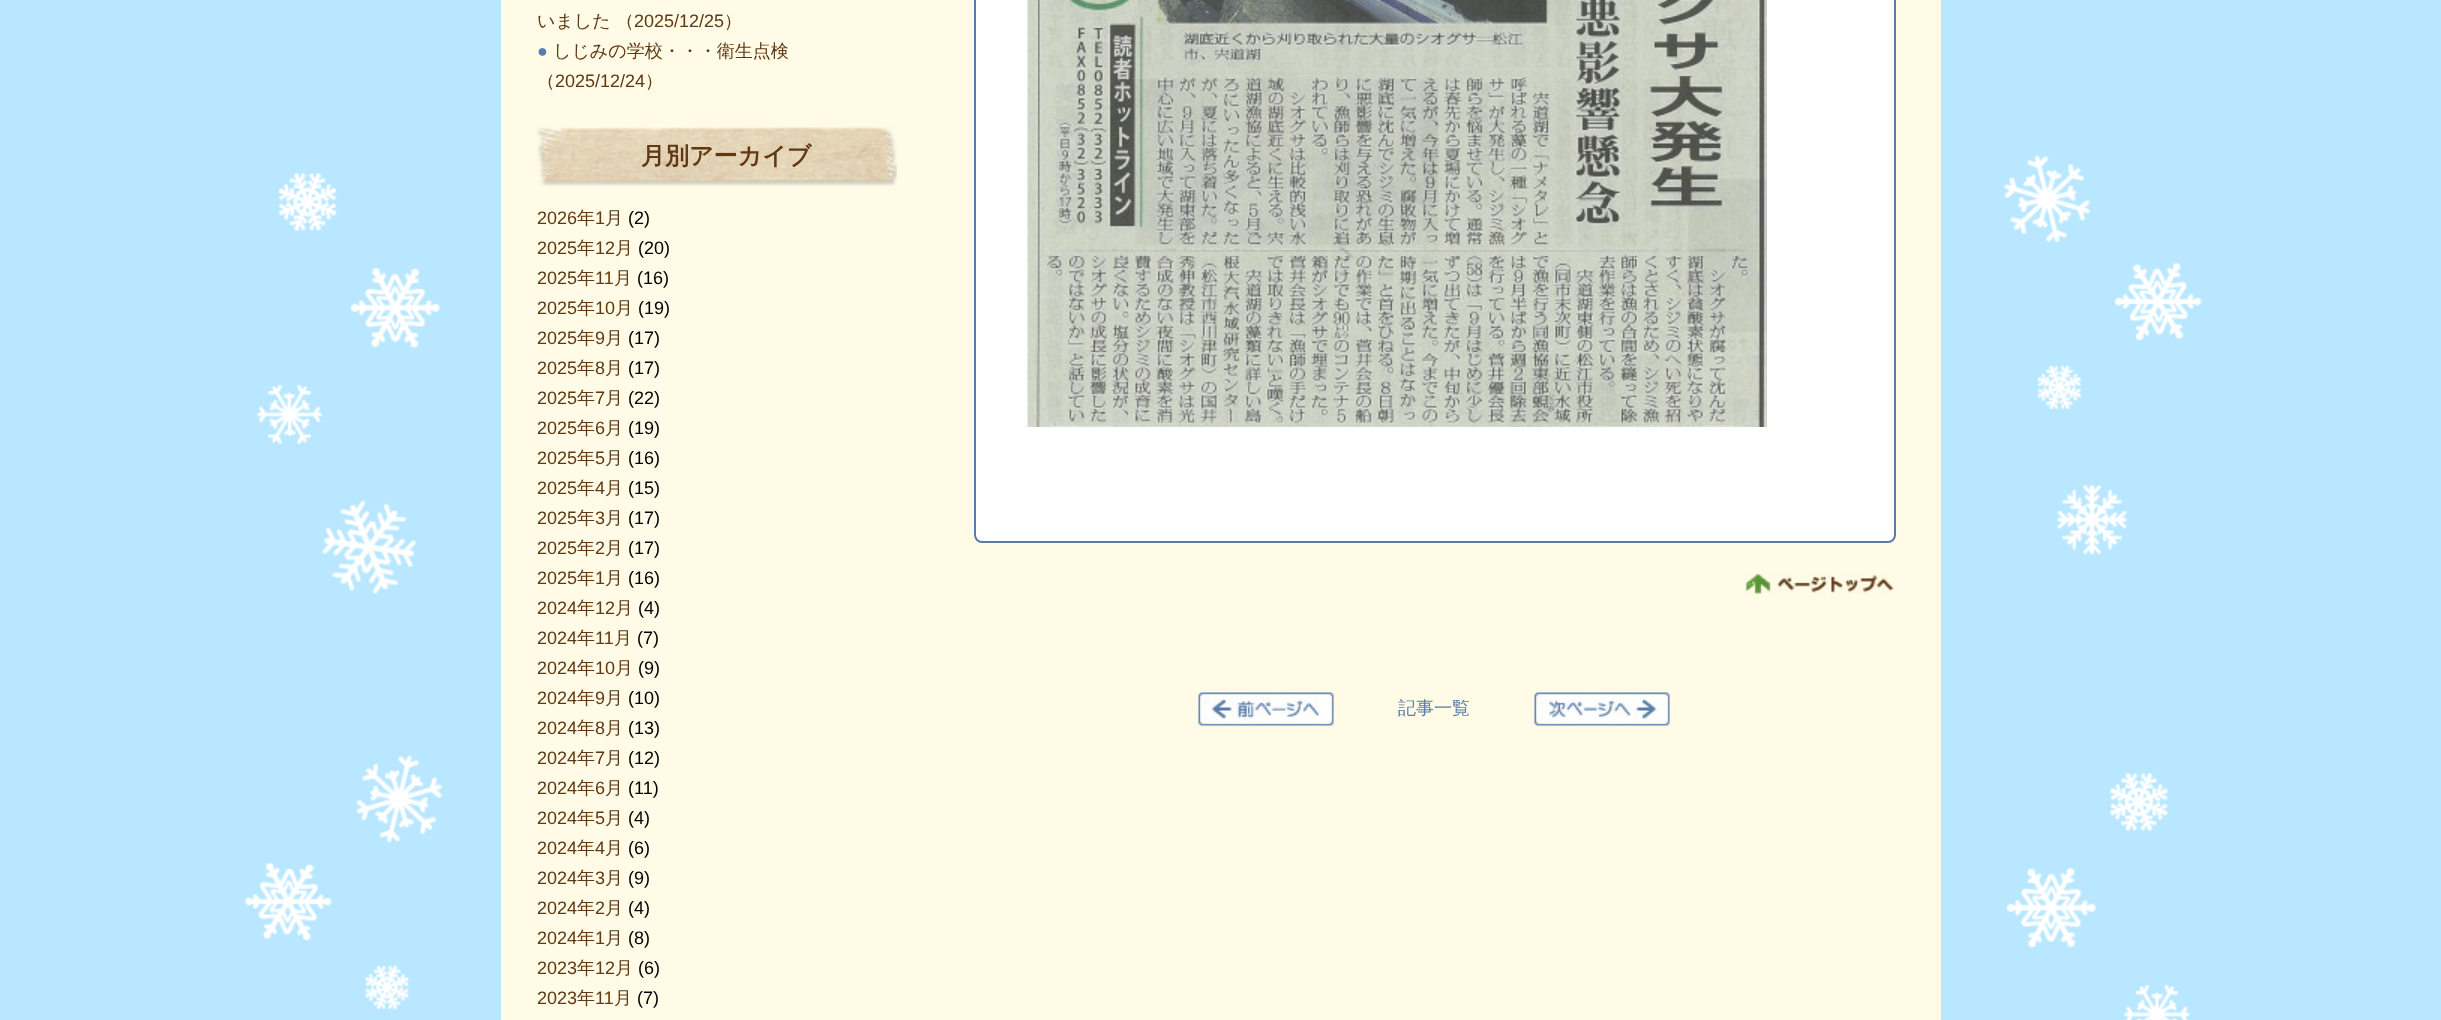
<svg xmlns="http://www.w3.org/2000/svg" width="2441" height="1020">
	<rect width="100%" height="100%" fill="#B8E7FF" />
	<image x="244" y="155" width="1959" height="865" href="assets/img1.png" />
	<rect x="501" y="0" width="1440" height="1020" fill="#FFFBE6" />
	<text x="537" y="27" font-family="WenQuanYi Zen Hei" font-size="18" font-weight="500" fill="#603811">いました （</text>
	<text x="634" y="27" font-family="Liberation Sans" font-size="18" fill="#603811">2025/12/25</text>
	<text x="724" y="27" font-family="WenQuanYi Zen Hei" font-size="18" font-weight="500" fill="#603811">）</text>
	<text x="537" y="57" font-family="Liberation Sans" font-size="18" fill="#597DA8">●</text>
	<g font-family="WenQuanYi Zen Hei" font-size="18" font-weight="500" fill="#603811">
		<text x="553" y="57">しじみの学校・・・衛生点検</text>
		<text x="537" y="87">（</text>
	</g>
	<text x="555" y="87" font-family="Liberation Sans" font-size="18" fill="#603811">2025/12/24</text>
	<text x="645" y="87" font-family="WenQuanYi Zen Hei" font-size="18" font-weight="500" fill="#603811">）</text>
	<image x="537" y="126" width="360" height="60" href="assets/img2.png" />
	<text x="641" y="164" font-family="WenQuanYi Zen Hei" font-size="24" font-weight="700" fill="#603811">月別アーカイブ</text>
	<text x="537" y="224" font-family="Liberation Sans" font-size="18" fill="#603811">2026</text>
	<text x="577" y="224" font-family="WenQuanYi Zen Hei" font-size="18" font-weight="500" fill="#603811">年</text>
	<text x="595" y="224" font-family="Liberation Sans" font-size="18" fill="#603811">1</text>
	<text x="605" y="224" font-family="WenQuanYi Zen Hei" font-size="18" font-weight="500" fill="#603811">月</text>
	<text x="628" y="224" font-family="Liberation Sans" font-size="18" fill="#000000">(2)</text>
	<text x="537" y="254" font-family="Liberation Sans" font-size="18" fill="#603811">2025</text>
	<text x="577" y="254" font-family="WenQuanYi Zen Hei" font-size="18" font-weight="500" fill="#603811">年</text>
	<text x="595" y="254" font-family="Liberation Sans" font-size="18" fill="#603811">12</text>
	<text x="615" y="254" font-family="WenQuanYi Zen Hei" font-size="18" font-weight="500" fill="#603811">月</text>
	<text x="638" y="254" font-family="Liberation Sans" font-size="18" fill="#000000">(20)</text>
	<text x="537" y="284" font-family="Liberation Sans" font-size="18" fill="#603811">2025</text>
	<text x="577" y="284" font-family="WenQuanYi Zen Hei" font-size="18" font-weight="500" fill="#603811">年</text>
	<text x="595" y="284" font-family="Liberation Sans" font-size="18" fill="#603811">11</text>
	<text x="614" y="284" font-family="WenQuanYi Zen Hei" font-size="18" font-weight="500" fill="#603811">月</text>
	<text x="637" y="284" font-family="Liberation Sans" font-size="18" fill="#000000">(16)</text>
	<text x="537" y="314" font-family="Liberation Sans" font-size="18" fill="#603811">2025</text>
	<text x="577" y="314" font-family="WenQuanYi Zen Hei" font-size="18" font-weight="500" fill="#603811">年</text>
	<text x="595" y="314" font-family="Liberation Sans" font-size="18" fill="#603811">10</text>
	<text x="615" y="314" font-family="WenQuanYi Zen Hei" font-size="18" font-weight="500" fill="#603811">月</text>
	<text x="638" y="314" font-family="Liberation Sans" font-size="18" fill="#000000">(19)</text>
	<text x="537" y="344" font-family="Liberation Sans" font-size="18" fill="#603811">2025</text>
	<text x="577" y="344" font-family="WenQuanYi Zen Hei" font-size="18" font-weight="500" fill="#603811">年</text>
	<text x="595" y="344" font-family="Liberation Sans" font-size="18" fill="#603811">9</text>
	<text x="605" y="344" font-family="WenQuanYi Zen Hei" font-size="18" font-weight="500" fill="#603811">月</text>
	<text x="628" y="344" font-family="Liberation Sans" font-size="18" fill="#000000">(17)</text>
	<text x="537" y="374" font-family="Liberation Sans" font-size="18" fill="#603811">2025</text>
	<text x="577" y="374" font-family="WenQuanYi Zen Hei" font-size="18" font-weight="500" fill="#603811">年</text>
	<text x="595" y="374" font-family="Liberation Sans" font-size="18" fill="#603811">8</text>
	<text x="605" y="374" font-family="WenQuanYi Zen Hei" font-size="18" font-weight="500" fill="#603811">月</text>
	<text x="628" y="374" font-family="Liberation Sans" font-size="18" fill="#000000">(17)</text>
	<text x="537" y="404" font-family="Liberation Sans" font-size="18" fill="#603811">2025</text>
	<text x="577" y="404" font-family="WenQuanYi Zen Hei" font-size="18" font-weight="500" fill="#603811">年</text>
	<text x="595" y="404" font-family="Liberation Sans" font-size="18" fill="#603811">7</text>
	<text x="605" y="404" font-family="WenQuanYi Zen Hei" font-size="18" font-weight="500" fill="#603811">月</text>
	<text x="628" y="404" font-family="Liberation Sans" font-size="18" fill="#000000">(22)</text>
	<text x="537" y="434" font-family="Liberation Sans" font-size="18" fill="#603811">2025</text>
	<text x="577" y="434" font-family="WenQuanYi Zen Hei" font-size="18" font-weight="500" fill="#603811">年</text>
	<text x="595" y="434" font-family="Liberation Sans" font-size="18" fill="#603811">6</text>
	<text x="605" y="434" font-family="WenQuanYi Zen Hei" font-size="18" font-weight="500" fill="#603811">月</text>
	<text x="628" y="434" font-family="Liberation Sans" font-size="18" fill="#000000">(19)</text>
	<text x="537" y="464" font-family="Liberation Sans" font-size="18" fill="#603811">2025</text>
	<text x="577" y="464" font-family="WenQuanYi Zen Hei" font-size="18" font-weight="500" fill="#603811">年</text>
	<text x="595" y="464" font-family="Liberation Sans" font-size="18" fill="#603811">5</text>
	<text x="605" y="464" font-family="WenQuanYi Zen Hei" font-size="18" font-weight="500" fill="#603811">月</text>
	<text x="628" y="464" font-family="Liberation Sans" font-size="18" fill="#000000">(16)</text>
	<text x="537" y="494" font-family="Liberation Sans" font-size="18" fill="#603811">2025</text>
	<text x="577" y="494" font-family="WenQuanYi Zen Hei" font-size="18" font-weight="500" fill="#603811">年</text>
	<text x="595" y="494" font-family="Liberation Sans" font-size="18" fill="#603811">4</text>
	<text x="605" y="494" font-family="WenQuanYi Zen Hei" font-size="18" font-weight="500" fill="#603811">月</text>
	<text x="628" y="494" font-family="Liberation Sans" font-size="18" fill="#000000">(15)</text>
	<text x="537" y="524" font-family="Liberation Sans" font-size="18" fill="#603811">2025</text>
	<text x="577" y="524" font-family="WenQuanYi Zen Hei" font-size="18" font-weight="500" fill="#603811">年</text>
	<text x="595" y="524" font-family="Liberation Sans" font-size="18" fill="#603811">3</text>
	<text x="605" y="524" font-family="WenQuanYi Zen Hei" font-size="18" font-weight="500" fill="#603811">月</text>
	<text x="628" y="524" font-family="Liberation Sans" font-size="18" fill="#000000">(17)</text>
	<text x="537" y="554" font-family="Liberation Sans" font-size="18" fill="#603811">2025</text>
	<text x="577" y="554" font-family="WenQuanYi Zen Hei" font-size="18" font-weight="500" fill="#603811">年</text>
	<text x="595" y="554" font-family="Liberation Sans" font-size="18" fill="#603811">2</text>
	<text x="605" y="554" font-family="WenQuanYi Zen Hei" font-size="18" font-weight="500" fill="#603811">月</text>
	<text x="628" y="554" font-family="Liberation Sans" font-size="18" fill="#000000">(17)</text>
	<text x="537" y="584" font-family="Liberation Sans" font-size="18" fill="#603811">2025</text>
	<text x="577" y="584" font-family="WenQuanYi Zen Hei" font-size="18" font-weight="500" fill="#603811">年</text>
	<text x="595" y="584" font-family="Liberation Sans" font-size="18" fill="#603811">1</text>
	<text x="605" y="584" font-family="WenQuanYi Zen Hei" font-size="18" font-weight="500" fill="#603811">月</text>
	<text x="628" y="584" font-family="Liberation Sans" font-size="18" fill="#000000">(16)</text>
	<text x="537" y="614" font-family="Liberation Sans" font-size="18" fill="#603811">2024</text>
	<text x="577" y="614" font-family="WenQuanYi Zen Hei" font-size="18" font-weight="500" fill="#603811">年</text>
	<text x="595" y="614" font-family="Liberation Sans" font-size="18" fill="#603811">12</text>
	<text x="615" y="614" font-family="WenQuanYi Zen Hei" font-size="18" font-weight="500" fill="#603811">月</text>
	<text x="638" y="614" font-family="Liberation Sans" font-size="18" fill="#000000">(4)</text>
	<text x="537" y="644" font-family="Liberation Sans" font-size="18" fill="#603811">2024</text>
	<text x="577" y="644" font-family="WenQuanYi Zen Hei" font-size="18" font-weight="500" fill="#603811">年</text>
	<text x="595" y="644" font-family="Liberation Sans" font-size="18" fill="#603811">11</text>
	<text x="614" y="644" font-family="WenQuanYi Zen Hei" font-size="18" font-weight="500" fill="#603811">月</text>
	<text x="637" y="644" font-family="Liberation Sans" font-size="18" fill="#000000">(7)</text>
	<text x="537" y="674" font-family="Liberation Sans" font-size="18" fill="#603811">2024</text>
	<text x="577" y="674" font-family="WenQuanYi Zen Hei" font-size="18" font-weight="500" fill="#603811">年</text>
	<text x="595" y="674" font-family="Liberation Sans" font-size="18" fill="#603811">10</text>
	<text x="615" y="674" font-family="WenQuanYi Zen Hei" font-size="18" font-weight="500" fill="#603811">月</text>
	<text x="638" y="674" font-family="Liberation Sans" font-size="18" fill="#000000">(9)</text>
	<text x="537" y="704" font-family="Liberation Sans" font-size="18" fill="#603811">2024</text>
	<text x="577" y="704" font-family="WenQuanYi Zen Hei" font-size="18" font-weight="500" fill="#603811">年</text>
	<text x="595" y="704" font-family="Liberation Sans" font-size="18" fill="#603811">9</text>
	<text x="605" y="704" font-family="WenQuanYi Zen Hei" font-size="18" font-weight="500" fill="#603811">月</text>
	<text x="628" y="704" font-family="Liberation Sans" font-size="18" fill="#000000">(10)</text>
	<text x="537" y="734" font-family="Liberation Sans" font-size="18" fill="#603811">2024</text>
	<text x="577" y="734" font-family="WenQuanYi Zen Hei" font-size="18" font-weight="500" fill="#603811">年</text>
	<text x="595" y="734" font-family="Liberation Sans" font-size="18" fill="#603811">8</text>
	<text x="605" y="734" font-family="WenQuanYi Zen Hei" font-size="18" font-weight="500" fill="#603811">月</text>
	<text x="628" y="734" font-family="Liberation Sans" font-size="18" fill="#000000">(13)</text>
	<text x="537" y="764" font-family="Liberation Sans" font-size="18" fill="#603811">2024</text>
	<text x="577" y="764" font-family="WenQuanYi Zen Hei" font-size="18" font-weight="500" fill="#603811">年</text>
	<text x="595" y="764" font-family="Liberation Sans" font-size="18" fill="#603811">7</text>
	<text x="605" y="764" font-family="WenQuanYi Zen Hei" font-size="18" font-weight="500" fill="#603811">月</text>
	<text x="628" y="764" font-family="Liberation Sans" font-size="18" fill="#000000">(12)</text>
	<text x="537" y="794" font-family="Liberation Sans" font-size="18" fill="#603811">2024</text>
	<text x="577" y="794" font-family="WenQuanYi Zen Hei" font-size="18" font-weight="500" fill="#603811">年</text>
	<text x="595" y="794" font-family="Liberation Sans" font-size="18" fill="#603811">6</text>
	<text x="605" y="794" font-family="WenQuanYi Zen Hei" font-size="18" font-weight="500" fill="#603811">月</text>
	<text x="628" y="794" font-family="Liberation Sans" font-size="18" fill="#000000">(11)</text>
	<text x="537" y="824" font-family="Liberation Sans" font-size="18" fill="#603811">2024</text>
	<text x="577" y="824" font-family="WenQuanYi Zen Hei" font-size="18" font-weight="500" fill="#603811">年</text>
	<text x="595" y="824" font-family="Liberation Sans" font-size="18" fill="#603811">5</text>
	<text x="605" y="824" font-family="WenQuanYi Zen Hei" font-size="18" font-weight="500" fill="#603811">月</text>
	<text x="628" y="824" font-family="Liberation Sans" font-size="18" fill="#000000">(4)</text>
	<text x="537" y="854" font-family="Liberation Sans" font-size="18" fill="#603811">2024</text>
	<text x="577" y="854" font-family="WenQuanYi Zen Hei" font-size="18" font-weight="500" fill="#603811">年</text>
	<text x="595" y="854" font-family="Liberation Sans" font-size="18" fill="#603811">4</text>
	<text x="605" y="854" font-family="WenQuanYi Zen Hei" font-size="18" font-weight="500" fill="#603811">月</text>
	<text x="628" y="854" font-family="Liberation Sans" font-size="18" fill="#000000">(6)</text>
	<text x="537" y="884" font-family="Liberation Sans" font-size="18" fill="#603811">2024</text>
	<text x="577" y="884" font-family="WenQuanYi Zen Hei" font-size="18" font-weight="500" fill="#603811">年</text>
	<text x="595" y="884" font-family="Liberation Sans" font-size="18" fill="#603811">3</text>
	<text x="605" y="884" font-family="WenQuanYi Zen Hei" font-size="18" font-weight="500" fill="#603811">月</text>
	<text x="628" y="884" font-family="Liberation Sans" font-size="18" fill="#000000">(9)</text>
	<text x="537" y="914" font-family="Liberation Sans" font-size="18" fill="#603811">2024</text>
	<text x="577" y="914" font-family="WenQuanYi Zen Hei" font-size="18" font-weight="500" fill="#603811">年</text>
	<text x="595" y="914" font-family="Liberation Sans" font-size="18" fill="#603811">2</text>
	<text x="605" y="914" font-family="WenQuanYi Zen Hei" font-size="18" font-weight="500" fill="#603811">月</text>
	<text x="628" y="914" font-family="Liberation Sans" font-size="18" fill="#000000">(4)</text>
	<text x="537" y="944" font-family="Liberation Sans" font-size="18" fill="#603811">2024</text>
	<text x="577" y="944" font-family="WenQuanYi Zen Hei" font-size="18" font-weight="500" fill="#603811">年</text>
	<text x="595" y="944" font-family="Liberation Sans" font-size="18" fill="#603811">1</text>
	<text x="605" y="944" font-family="WenQuanYi Zen Hei" font-size="18" font-weight="500" fill="#603811">月</text>
	<text x="628" y="944" font-family="Liberation Sans" font-size="18" fill="#000000">(8)</text>
	<text x="537" y="974" font-family="Liberation Sans" font-size="18" fill="#603811">2023</text>
	<text x="577" y="974" font-family="WenQuanYi Zen Hei" font-size="18" font-weight="500" fill="#603811">年</text>
	<text x="595" y="974" font-family="Liberation Sans" font-size="18" fill="#603811">12</text>
	<text x="615" y="974" font-family="WenQuanYi Zen Hei" font-size="18" font-weight="500" fill="#603811">月</text>
	<text x="638" y="974" font-family="Liberation Sans" font-size="18" fill="#000000">(6)</text>
	<text x="537" y="1004" font-family="Liberation Sans" font-size="18" fill="#603811">2023</text>
	<text x="577" y="1004" font-family="WenQuanYi Zen Hei" font-size="18" font-weight="500" fill="#603811">年</text>
	<text x="595" y="1004" font-family="Liberation Sans" font-size="18" fill="#603811">11</text>
	<text x="614" y="1004" font-family="WenQuanYi Zen Hei" font-size="18" font-weight="500" fill="#603811">月</text>
	<text x="637" y="1004" font-family="Liberation Sans" font-size="18" fill="#000000">(7)</text>
	<rect x="975" y="-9" width="920" height="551" rx="7" fill="#FFFFFF" stroke="#597DA8" stroke-width="2" />
	<image x="1027" y="0" width="740" height="427" href="assets/img3.png" />
	<image x="1745" y="573" width="149" height="21" href="assets/img4.png" />
	<image x="1198" y="692" width="136" height="34" href="assets/img5.png" />
	<text x="1398" y="714" font-family="WenQuanYi Zen Hei" font-size="18" font-weight="500" fill="#597DA8">記事一覧</text>
	<image x="1534" y="692" width="136" height="34" href="assets/img6.png" />
</svg>
